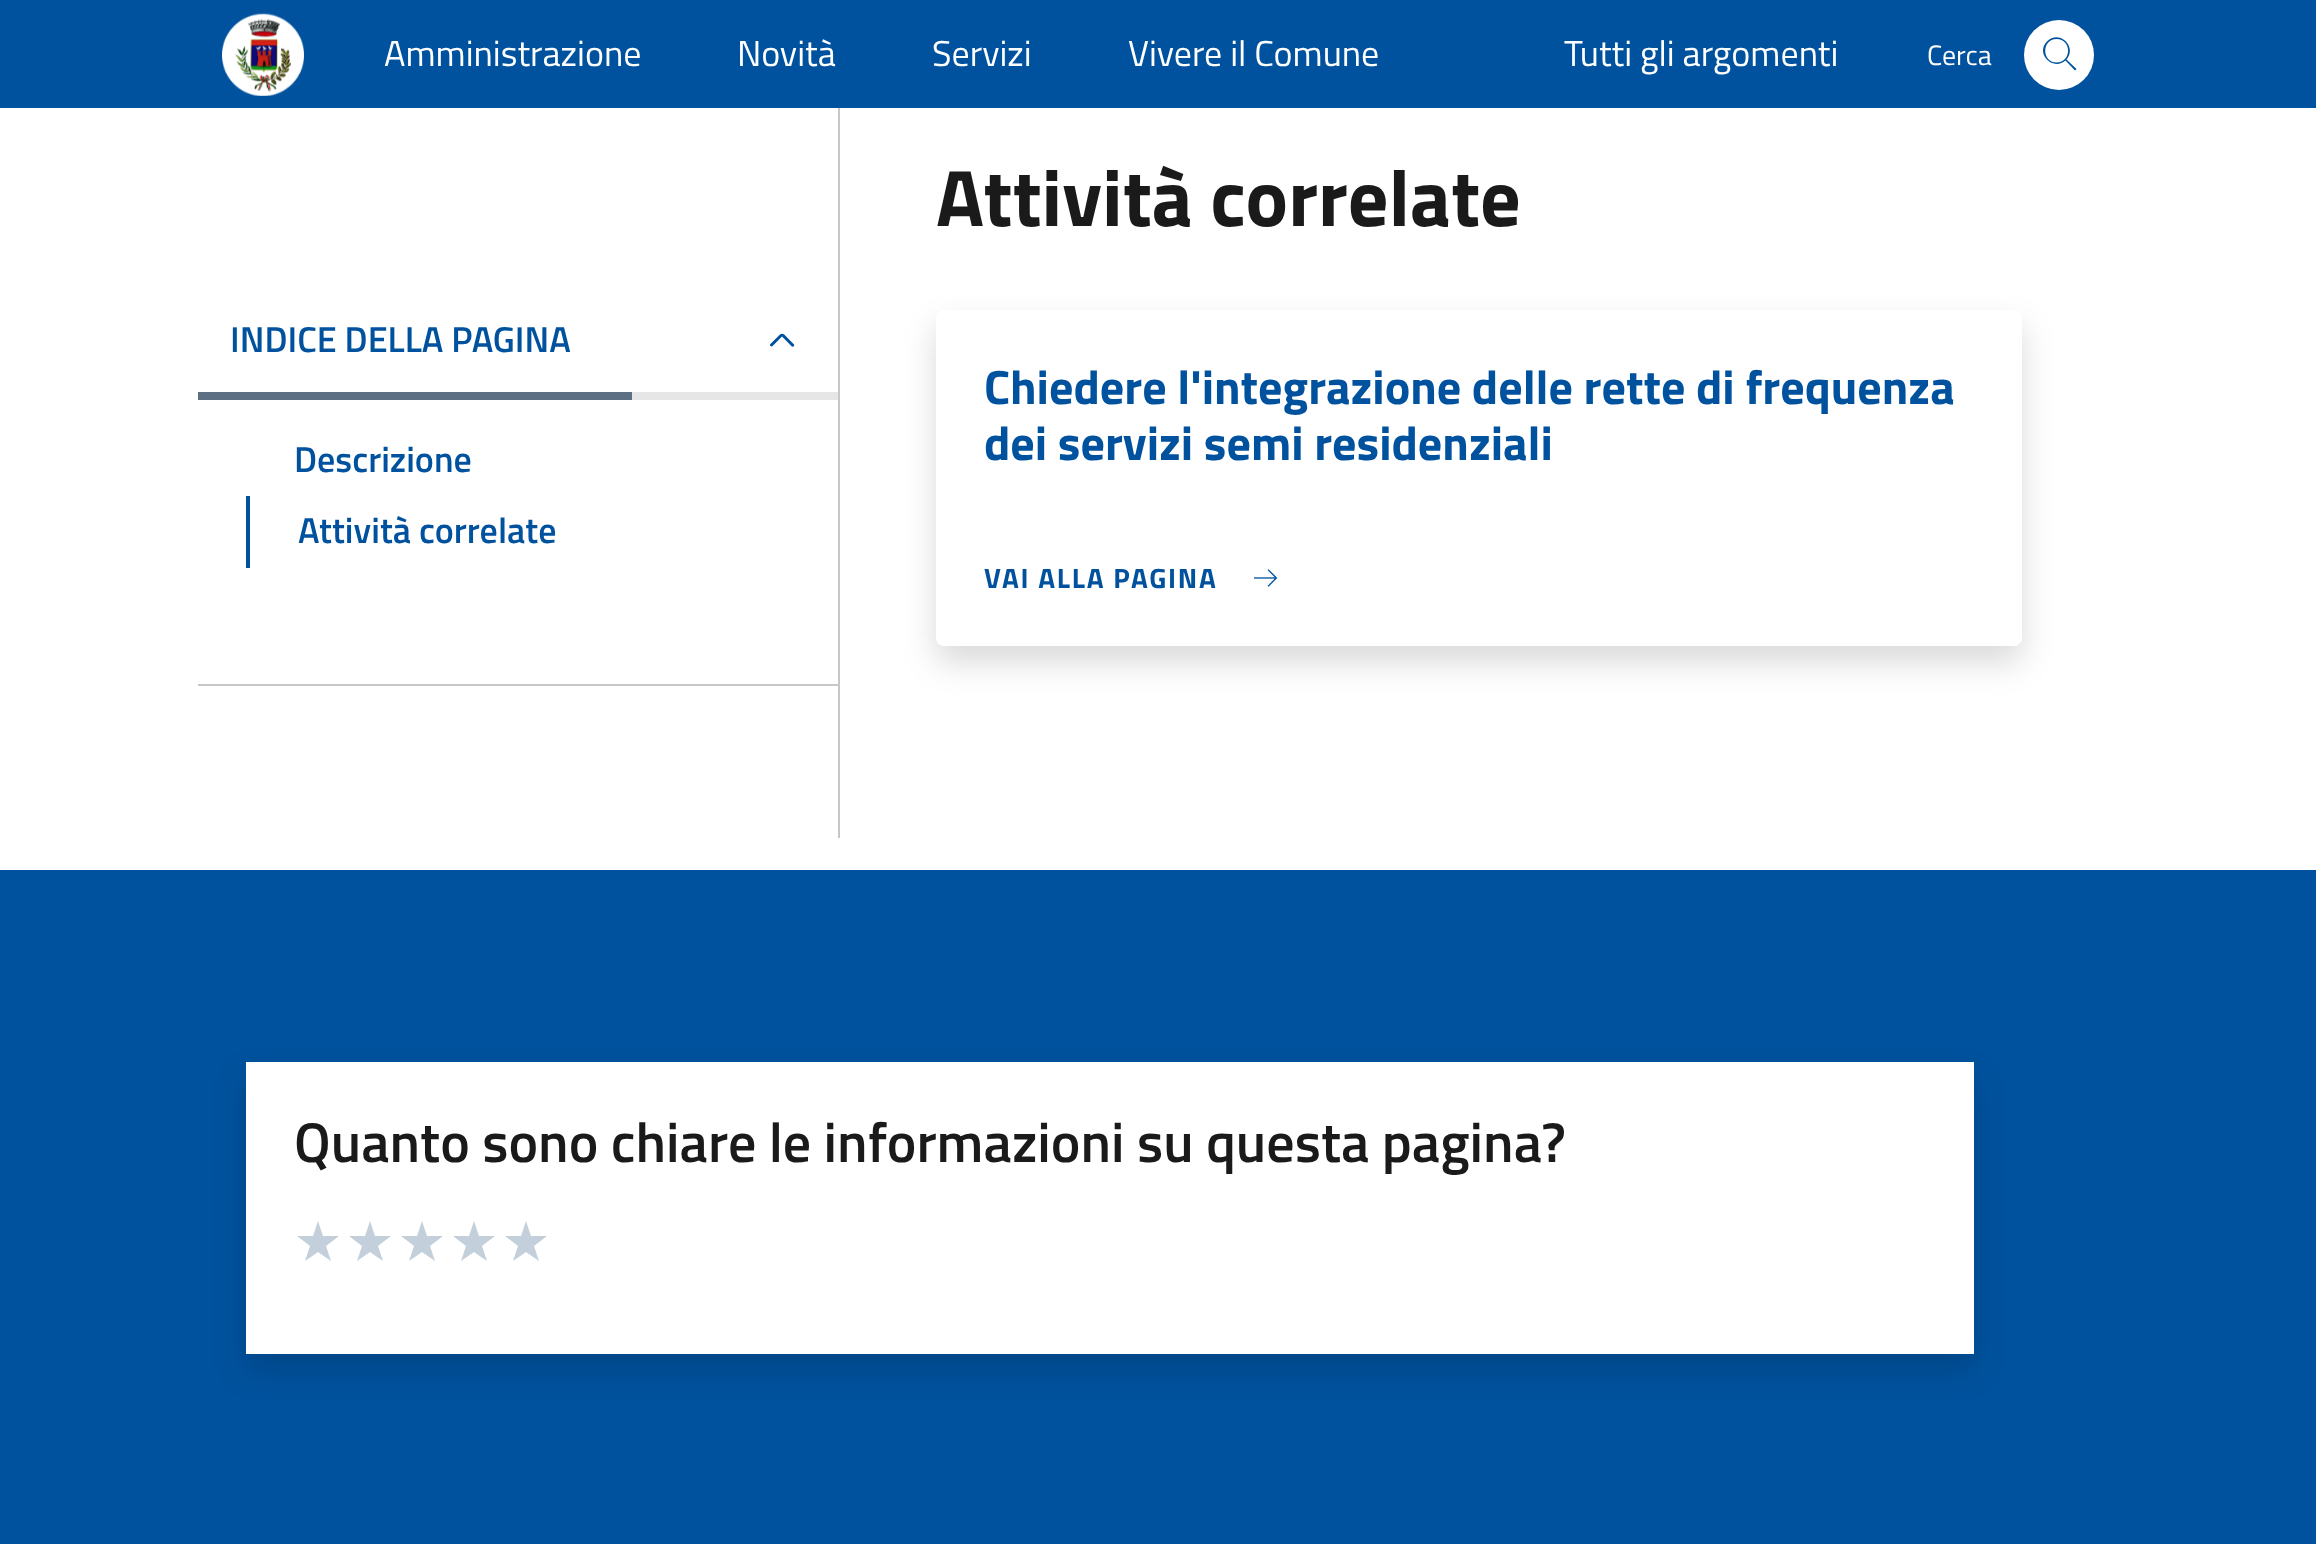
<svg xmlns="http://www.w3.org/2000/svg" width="2316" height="1544">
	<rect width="100%" height="100%" fill="#FFFFFF" />
	<rect x="0" y="0" width="2316" height="108" fill="#00529E" />
	<image x="222" y="13" width="82" height="83" href="assets/img1.png" />
	<g font-family="Titillium Web" font-size="36" fill="#FFFFFF">
		<text x="384" y="66">Amministrazione</text>
		<text x="737" y="66">Novità</text>
		<text x="932" y="66">Servizi</text>
		<text x="1128" y="66">Vivere il Comune</text>
		<text x="1564" y="66">Tutti gli argomenti</text>
	</g>
	<text x="1927" y="65" font-family="Titillium Web" font-size="28" fill="#FFFFFF">Cerca</text>
	<circle cx="2059" cy="55" r="35" fill="#FFFFFF" />
	<path d="M2076.5 69L2066.5 59.5C2077.5 47 2059.5 29 2047 41.5C2035 53.5 2053 71.5 2065.5 60.5L2075 70.5ZM2056.5 62.5C2041.5 62.5 2041.5 39 2056.5 39C2072 39 2072 62.5 2056.5 62.5Z" fill="#00529E" />
	<rect x="198" y="684" width="640" height="2" fill="#C5C7C9" />
	<text x="230" y="352" font-family="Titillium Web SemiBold" font-size="36" font-weight="600" fill="#00529E">INDICE DELLA PAGINA</text>
	<image x="770" y="333" width="25" height="14" href="assets/img2.png" />
	<rect x="632" y="392" width="206" height="8" fill="#E6E6E6" />
	<rect x="198" y="392" width="434" height="8" fill="#5D7083" />
	<text x="294" y="472" font-family="Titillium Web SemiBold" font-size="36" font-weight="600" fill="#00529E">Descrizione</text>
	<rect x="246" y="496" width="4" height="72" fill="#00529E" />
	<text x="298" y="543" font-family="Titillium Web SemiBold" font-size="36" font-weight="600" fill="#00529E">Attività correlate</text>
	<rect x="838" y="108" width="2" height="730" fill="#C5C7C9" />
	<text x="936" y="226" font-family="Titillium Web" font-size="80" font-weight="700" fill="#1A1A1A">Attività correlate</text>
	<rect x="936" y="326" width="1086" height="336" rx="8" fill="#000000" fill-opacity="0.15" filter="blur(16px)" />
	<rect x="936" y="310" width="1086" height="336" rx="8" fill="#FFFFFF" />
	<g font-family="Titillium Web" font-size="48" font-weight="700" fill="#00529E">
		<text x="984" y="404">Chiedere l'integrazione delle rette di frequenza</text>
		<text x="984" y="460">dei servizi semi residenziali</text>
	</g>
	<text x="984" y="588" font-family="Titillium Web" font-size="28" font-weight="700" letter-spacing="1.75" fill="#00529E">VAI ALLA PAGINA</text>
	<image x="1254" y="569" width="24" height="18" href="assets/img3.png" />
	<rect x="0" y="870" width="2316" height="674" fill="#00529E" />
	<rect x="246" y="1078" width="1728" height="292" fill="#000000" fill-opacity="0.15" filter="blur(16px)" />
	<rect x="246" y="1062" width="1728" height="292" fill="#FFFFFF" />
	<text x="294" y="1162" font-family="Titillium Web SemiBold" font-size="56" font-weight="600" fill="#1A1A1A">Quanto sono chiare le informazioni su questa pagina?</text>
	<path d="M318 1221L313 1236H297L310 1246L305 1261L318 1252L331 1261L326 1246L339 1236H323Z" fill="#C3CFDB" />
	<path d="M370 1221L365 1236H349L362 1246L357 1261L370 1252L383 1261L378 1246L391 1236H375Z" fill="#C3CFDB" />
	<path d="M422 1221L417 1236H401L414 1246L409 1261L422 1252L435 1261L430 1246L443 1236H427Z" fill="#C3CFDB" />
	<path d="M474 1221L469 1236H453L466 1246L461 1261L474 1252L487 1261L482 1246L495 1236H479Z" fill="#C3CFDB" />
	<path d="M526 1221L521 1236H505L518 1246L513 1261L526 1252L539 1261L534 1246L547 1236H531Z" fill="#C3CFDB" />
</svg>
